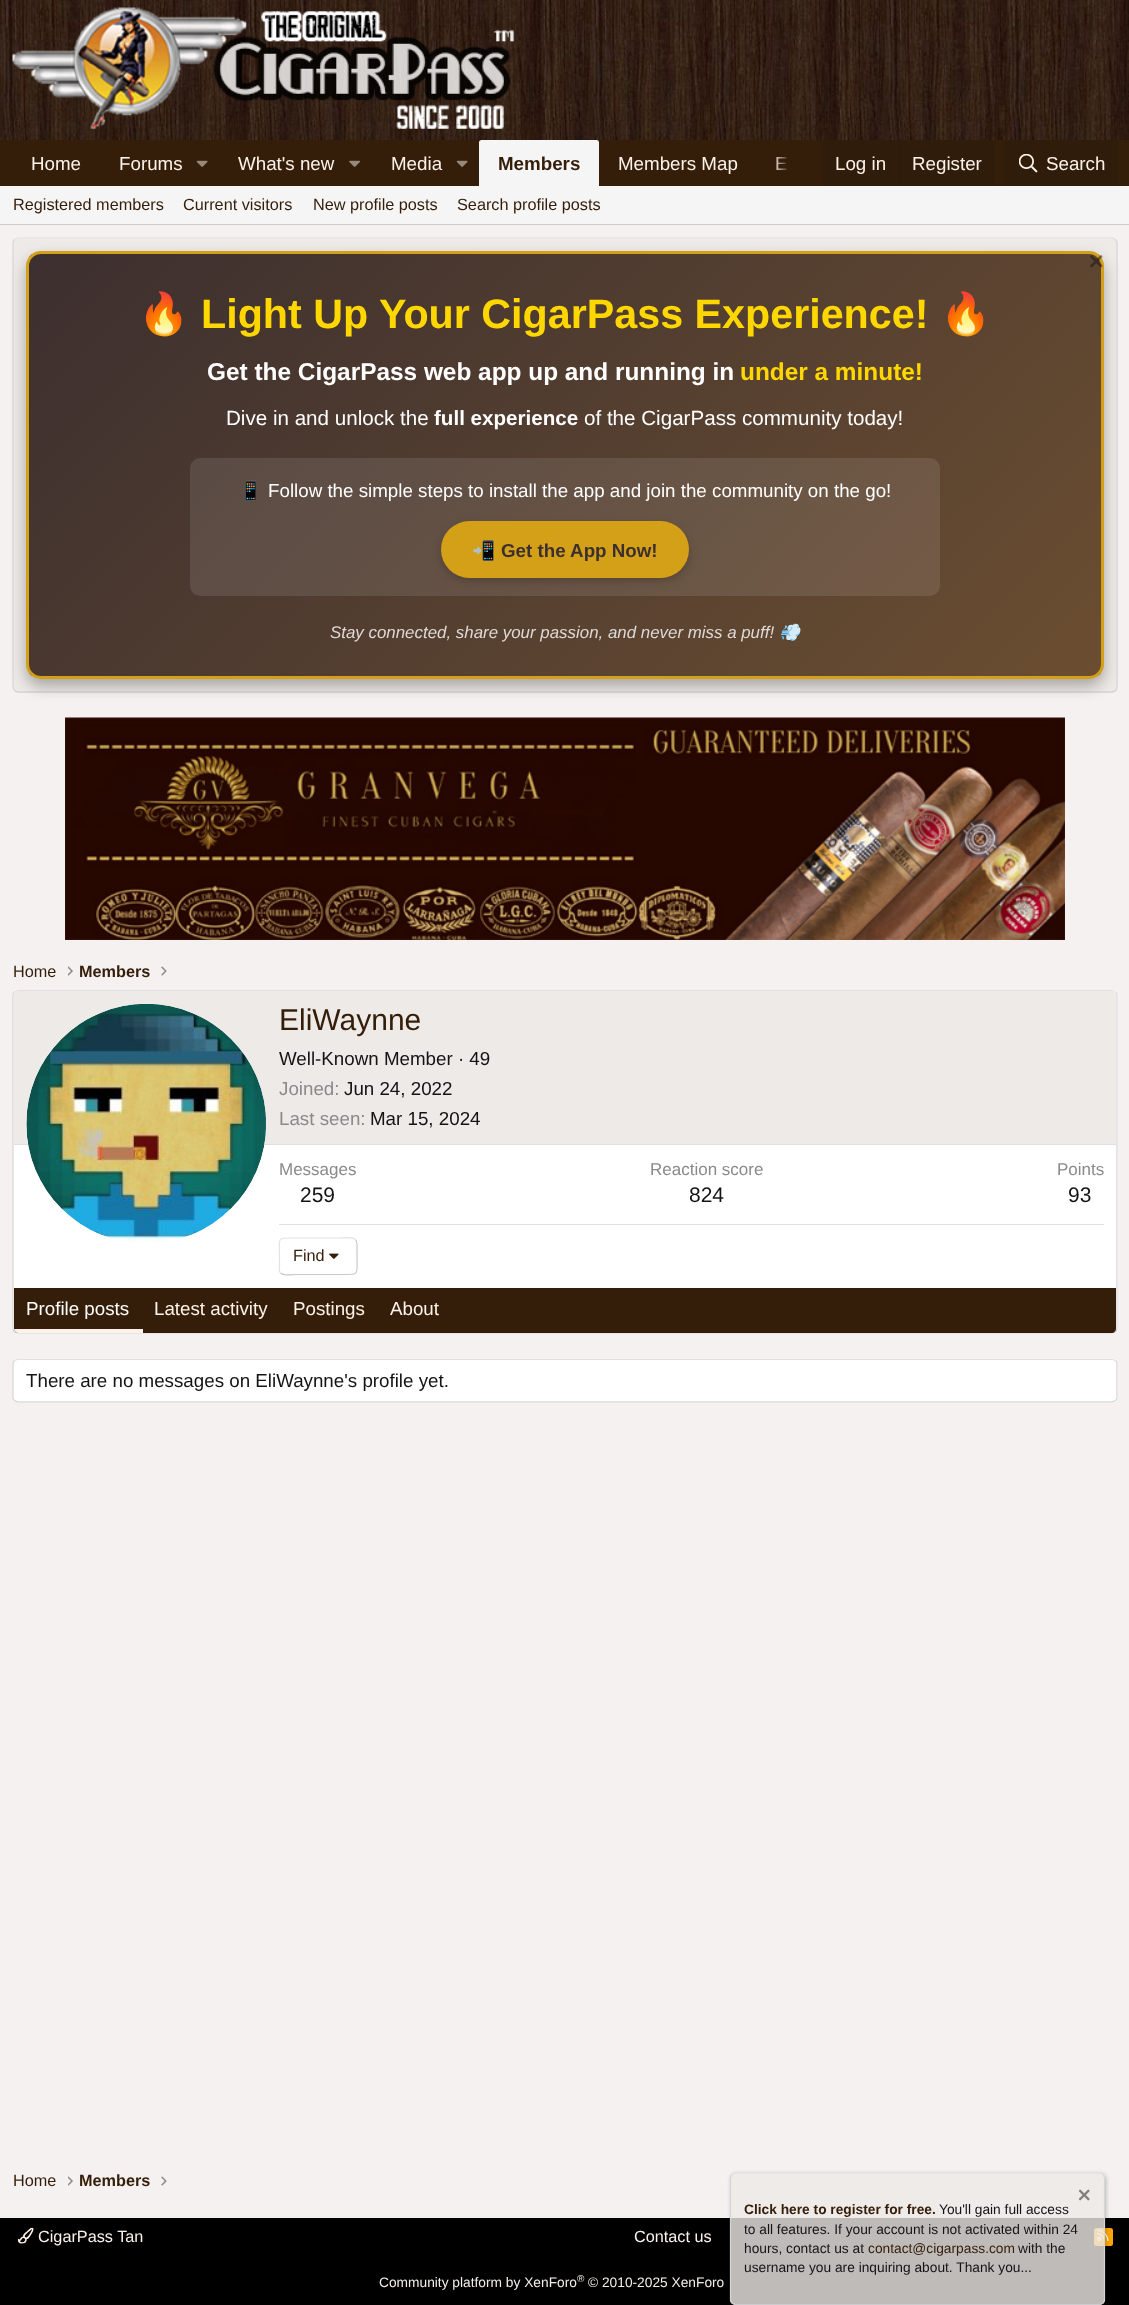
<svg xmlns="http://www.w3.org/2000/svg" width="1129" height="2305">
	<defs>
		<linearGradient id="g1" gradientUnits="userSpaceOnUse" x1="773" y1="163" x2="823" y2="163"><stop offset="0" stop-color="#341D09" stop-opacity="0" /><stop offset="0.33" stop-color="#341D09" /></linearGradient>
		<clipPath id="clip1"><rect x="26" y="251" width="1078" height="428" rx="15" /></clipPath>
		<linearGradient id="g2" gradientUnits="userSpaceOnUse" x1="191" y1="91" x2="939" y2="839"><stop offset="0" stop-color="#3C2F2F" /><stop offset="1" stop-color="#6B4E31" /></linearGradient>
		<clipPath id="clip2"><path d="M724 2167H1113V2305H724ZM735 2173H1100C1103 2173 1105 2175 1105 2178V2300C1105 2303 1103 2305 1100 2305H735C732 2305 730 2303 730 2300V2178C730 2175 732 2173 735 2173Z" clip-rule="evenodd" /></clipPath>
	</defs>
	<rect width="100%" height="100%" fill="#F4F1F0" />
	<image x="0" y="0" width="1129" height="140" href="assets/img1.png" />
	<image x="12" y="7" width="502" height="122" href="assets/img2.png" />
	<rect x="0" y="140" width="1129" height="46" fill="#341D09" />
	<g font-family="Liberation Sans" font-size="18.75" fill="#FDF2E9">
		<text x="31" y="170">Home</text>
		<text x="119" y="170">Forums</text>
	</g>
	<image x="196" y="160" width="12" height="7" href="assets/img3.png" />
	<text x="238" y="170" font-family="Liberation Sans" font-size="18.75" fill="#FDF2E9">What's new</text>
	<image x="349" y="160" width="11" height="7" href="assets/img4.png" />
	<text x="391" y="170" font-family="Liberation Sans" font-size="18.75" fill="#FDF2E9">Media</text>
	<image x="456" y="160" width="12" height="7" href="assets/img3.png" />
	<path d="M481.5 140H596.5C598 140 599 141 599 142.5V186H479V142.5C479 141 480 140 481.5 140Z" fill="#F5F5F5" />
	<text x="498" y="170" font-family="Liberation Sans" font-size="18.75" font-weight="700" fill="#341D09">Members</text>
	<g font-family="Liberation Sans" font-size="18.75" fill="#FDF2E9">
		<text x="618" y="170">Members Map</text>
		<text x="775" y="170">E</text>
	</g>
	<rect x="776" y="157" width="11" height="13" fill="url(#g1)" />
	<path d="M828 140H990C993 140 995 142 995 145V186H823V145C823 142 825 140 828 140Z" fill="#2F1C0B" />
	<text x="835" y="170" font-family="Liberation Sans" font-size="18.75" fill="#FDF2E9">Log in</text>
	<rect x="899" y="140" width="1" height="46" fill="#2B1B0C" />
	<text x="912" y="170" font-family="Liberation Sans" font-size="18.75" fill="#FDF2E9">Register</text>
	<path d="M1009 140H1113C1116 140 1118 142 1118 145V186H1004V145C1004 142 1006 140 1009 140Z" fill="#2F1C0B" />
	<image x="1019" y="154" width="19" height="19" href="assets/img5.png" />
	<text x="1046" y="170" font-family="Liberation Sans" font-size="18.75" fill="#FDF2E9">Search</text>
	<rect x="0" y="186" width="1129" height="38" fill="#F5F5F5" />
	<rect x="0" y="224" width="1129" height="1" fill="#CCCCCC" />
	<g font-family="Liberation Sans" font-size="16.25" fill="#341D09">
		<text x="13" y="210">Registered members</text>
		<text x="183" y="210">Current visitors</text>
		<text x="313" y="210">New profile posts</text>
		<text x="457" y="210">Search profile posts</text>
	</g>
	<rect x="13" y="238" width="1105" height="455" rx="5" fill="#EEEAE7" />
	<path d="M14.5 239.5L17.5 238H1112.5L1115.5 239.5" fill="none" stroke="#E0E0E0" stroke-width="1.2" />
	<path d="M1115.5 239.5L1117 242V391V687.5L1115.5 690.5" fill="none" stroke="#D6D6D6" stroke-width="1.2" />
	<path d="M1115.5 690.5L1112.5 692H17.5L14.5 690.5" fill="none" stroke="#CCCCCC" stroke-width="1.2" />
	<path d="M14.5 690.5L13 687.5V242L14.5 239.5" fill="none" stroke="#D6D6D6" stroke-width="1.2" />
	<rect x="26" y="259" width="1078" height="427" rx="15" fill="#000000" fill-opacity="0.3" filter="blur(7.5px)" />
	<g clip-path="url(#clip1)">
		<rect x="29" y="254" width="1072" height="422" fill="url(#g2)" />
	</g>
	<rect x="27.5" y="252.5" width="1075" height="425" rx="13.5" fill="none" stroke="#D4A017" stroke-width="3" />
	<image x="1090" y="255" width="13" height="13" href="assets/img6.png" />
	<text x="138" y="328" font-family="Noto Color Emoji" font-size="41.25" font-weight="700" fill="#FFD700">🔥</text>
	<text x="201" y="328" font-family="Liberation Sans" font-size="41.25" font-weight="700" fill="#FFD700">Light Up Your CigarPass Experience!</text>
	<text x="940" y="328" font-family="Noto Color Emoji" font-size="41.25" font-weight="700" fill="#FFD700">🔥</text>
	<text x="207" y="380" font-family="Liberation Sans" font-size="24.4" font-weight="700" fill="#FFFFFF">Get the CigarPass web app up and running in</text>
	<text x="740" y="380" font-family="Liberation Sans" font-size="24.4" font-weight="700" fill="#FFD700">under a minute!</text>
	<text x="226" y="425" font-family="Liberation Sans" font-size="20.6" fill="#FFFFFF">Dive in and unlock the</text>
	<text x="434" y="425" font-family="Liberation Sans" font-size="20.6" font-weight="700" fill="#FFFFFF">full experience</text>
	<text x="584" y="425" font-family="Liberation Sans" font-size="20.6" fill="#FFFFFF">of the CigarPass community today!</text>
	<rect x="190" y="458" width="750" height="138" rx="10" fill="#FFFFFF" fill-opacity="0.1" />
	<text x="239" y="497" font-family="Noto Color Emoji" font-size="18.75" fill="#FFFFFF">📱</text>
	<text x="268" y="497" font-family="Liberation Sans" font-size="18.75" fill="#FFFFFF">Follow the simple steps to install the app and join the community on the go!</text>
	<rect x="441" y="525" width="248" height="56" rx="28" fill="#000000" fill-opacity="0.2" filter="blur(4px)" />
	<rect x="441" y="521" width="248" height="57" rx="28.5" fill="#D4A017" />
	<text x="472" y="557" font-family="Noto Color Emoji" font-size="18.75" font-weight="700" fill="#3C2F2F">📲</text>
	<text x="501" y="557" font-family="Liberation Sans" font-size="18.75" font-weight="700" fill="#3C2F2F">Get the App Now!</text>
	<text x="330" y="638" font-family="Liberation Sans" font-size="16.9" font-style="italic" fill="#DED9D6">Stay connected, share your passion, and never miss a puff!</text>
	<text x="779" y="638" font-family="Noto Color Emoji" font-size="16.9" font-style="italic" fill="#DED9D6">💨</text>
	<image x="65" y="717" width="1000" height="223" href="assets/img7.png" />
	<text x="13" y="977" font-family="Liberation Sans" font-size="16.25" fill="#341D09">Home</text>
	<image x="68" y="966" width="5" height="10" href="assets/img8.png" />
	<text x="79" y="977" font-family="Liberation Sans" font-size="16.25" font-weight="700" fill="#341D09">Members</text>
	<image x="161" y="966" width="6" height="10" href="assets/img9.png" />
	<rect x="13" y="990" width="1105" height="344" rx="5" fill="#FFFFFF" />
	<path d="M14.5 992L17.5 990.5H1112.5L1115.5 992" fill="none" stroke="#E0E0E0" stroke-width="1.2" />
	<path d="M1115.5 992C1116.5 992.5 1117 994 1117 995V1329C1117 1330 1116.5 1331 1115.5 1332" fill="none" stroke="#D6D6D6" stroke-width="1.2" />
	<path d="M1115.5 1332L1112.5 1333H17.5L14.5 1332" fill="none" stroke="#CCCCCC" stroke-width="1.2" />
	<path d="M14.5 1332C13.5 1331 13 1330 13 1329V995C13 994 13.5 992.5 14.5 992" fill="none" stroke="#D6D6D6" stroke-width="1.2" />
	<path d="M18 991H1112C1114 991 1116 993 1116 995V1145H14V995C14 993 16 991 18 991Z" fill="#EEEAE7" />
	<rect x="14" y="1144" width="1102" height="1" fill="#E0E0E0" />
	<circle cx="146" cy="1124" r="120" fill="#FFFFFF" />
	<image x="26" y="1004" width="240" height="239" href="assets/img10.png" />
	<text x="279" y="1030" font-family="Liberation Sans" font-size="30" fill="#341D09">EliWaynne</text>
	<text x="279" y="1065" font-family="Liberation Sans" font-size="18.75" fill="#141414">Well-Known Member · 49</text>
	<text x="279" y="1095" font-family="Liberation Sans" font-size="18.75" fill="#8A8A8A">Joined:</text>
	<text x="344" y="1095" font-family="Liberation Sans" font-size="18.75" fill="#141414">Jun 24, 2022</text>
	<text x="279" y="1125" font-family="Liberation Sans" font-size="18.75" fill="#8A8A8A">Last seen:</text>
	<text x="370" y="1125" font-family="Liberation Sans" font-size="18.75" fill="#141414">Mar 15, 2024</text>
	<text x="279" y="1175" font-family="Liberation Sans" font-size="17" fill="#8A8A8A">Messages</text>
	<text x="300" y="1202" font-family="Liberation Sans" font-size="21" fill="#141414">259</text>
	<text x="650" y="1175" font-family="Liberation Sans" font-size="17" fill="#8A8A8A">Reaction score</text>
	<text x="689" y="1202" font-family="Liberation Sans" font-size="21" fill="#141414">824</text>
	<text x="1057" y="1175" font-family="Liberation Sans" font-size="17" fill="#8A8A8A">Points</text>
	<text x="1068" y="1202" font-family="Liberation Sans" font-size="21" fill="#141414">93</text>
	<rect x="279" y="1224" width="825" height="1" fill="#E0E0E0" />
	<path d="M355.5 1239.5C357.5 1241.5 357 1244.5 357 1247V1256C357 1275.5 360 1274.5 341 1274.5H295C294.5 1274.5 284 1276 280.5 1273" fill="none" stroke="#C9C9C9" stroke-width="1.2" />
	<path d="M280.5 1273C278.5 1271 279.5 1268 279.5 1265.5V1256C279.5 1237 276 1238 295 1238H341C341.5 1238 352.5 1236.5 355.5 1239.5" fill="none" stroke="#E3E3E3" stroke-width="1.2" />
	<text x="293" y="1261" font-family="Liberation Sans" font-size="16.25" fill="#341D09">Find</text>
	<image x="329" y="1253" width="10" height="6" href="assets/img11.png" />
	<path d="M14 1288H1116V1329C1116 1331 1114 1333 1112 1333H18C16 1333 14 1331 14 1329Z" fill="#341D09" />
	<path d="M14 1329H143V1333H18C16 1333 14 1331 14 1329Z" fill="#FDF2E9" />
	<text x="26" y="1315" font-family="Liberation Sans" font-size="18.75" fill="#FFFFFF">Profile posts</text>
	<g font-family="Liberation Sans" font-size="18.75" fill="#FDF2E9">
		<text x="154" y="1315">Latest activity</text>
		<text x="293" y="1315">Postings</text>
		<text x="390" y="1315">About</text>
	</g>
	<rect x="13" y="1359" width="1105" height="44" rx="5" fill="#FFFFFF" />
	<path d="M14.5 1360.5L17.5 1359.5H1112.5L1115.5 1360.5" fill="none" stroke="#E0E0E0" stroke-width="1.2" />
	<path d="M1115.5 1360.5C1116.5 1361.5 1117 1362.5 1117 1364V1397.5C1117 1398.5 1116.5 1400 1115.5 1400.5" fill="none" stroke="#D6D6D6" stroke-width="1.2" />
	<path d="M1115.5 1400.5L1112.5 1402H17.5L14.5 1400.5" fill="none" stroke="#CCCCCC" stroke-width="1.2" />
	<path d="M14.5 1400.5C13.5 1400 13 1398.5 13 1397.5V1364C13 1362.5 13.5 1361.5 14.5 1360.5" fill="none" stroke="#D6D6D6" stroke-width="1.2" />
	<text x="26" y="1387" font-family="Liberation Sans" font-size="18.75" fill="#141414">There are no messages on EliWaynne's profile yet.</text>
	<text x="13" y="2186" font-family="Liberation Sans" font-size="16.25" fill="#341D09">Home</text>
	<image x="68" y="2176" width="5" height="10" href="assets/img8.png" />
	<text x="79" y="2186" font-family="Liberation Sans" font-size="16.25" font-weight="700" fill="#341D09">Members</text>
	<image x="161" y="2176" width="6" height="10" href="assets/img9.png" />
	<rect x="0" y="2218" width="1129" height="87" fill="#000000" />
	<image x="17" y="2227" width="17" height="17" href="assets/img12.png" />
	<g font-family="Liberation Sans" font-size="16.25" fill="#FDF2E9">
		<text x="38" y="2242">CigarPass Tan</text>
		<text x="634" y="2242">Contact us</text>
	</g>
	<rect x="1094" y="2228" width="19" height="18" rx="2.5" fill="#FFA500" />
	<image x="1097" y="2229" width="12" height="12" href="assets/img13.png" />
	<text x="379" y="2287" font-family="Liberation Sans" font-size="13.75" fill="#F2EDE9">Community platform by XenForo</text>
	<text x="577" y="2282" font-family="Liberation Sans" font-size="10" fill="#F2EDE9">®</text>
	<text x="588" y="2287" font-family="Liberation Sans" font-size="13.75" fill="#F2EDE9">© 2010-2025 XenForo</text>
	<g clip-path="url(#clip2)">
		<rect x="731" y="2174" width="375" height="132" rx="5" fill="#000000" fill-opacity="0.25" filter="blur(2px)" />
	</g>
	<rect x="730" y="2173" width="375" height="132" rx="5" fill="#EEEAE7" fill-opacity="0.8" />
	<path d="M732 2174.5L735 2173H1100L1103 2174.5" fill="none" stroke="#E0E0E0" stroke-width="1.2" />
	<path d="M1103 2174.5L1104.5 2177.5V2300.5L1103 2303" fill="none" stroke="#D6D6D6" stroke-width="1.2" />
	<path d="M1103 2303L1100 2304.5H735L732 2303" fill="none" stroke="#CCCCCC" stroke-width="1.2" />
	<path d="M732 2303L730.5 2300.5V2198V2177.5L732 2174.5" fill="none" stroke="#D6D6D6" stroke-width="1.2" />
	<image x="1079" y="2189" width="11" height="12" href="assets/img14.png" />
	<text x="744" y="2214" font-family="Liberation Sans" font-size="13.75" font-weight="700" fill="#341D09">Click here to register for free.</text>
	<g font-family="Liberation Sans" font-size="13.75" fill="#141414">
		<text x="939" y="2214">You'll gain full access</text>
		<text x="744" y="2234">to all features. If your account is not activated within 24</text>
		<text x="744" y="2253">hours, contact us at</text>
	</g>
	<text x="868" y="2253" font-family="Liberation Sans" font-size="13.75" fill="#341D09">contact@cigarpass.com</text>
	<g font-family="Liberation Sans" font-size="13.75" fill="#141414">
		<text x="1018" y="2253">with the</text>
		<text x="744" y="2272">username you are inquiring about. Thank you...</text>
	</g>
</svg>
